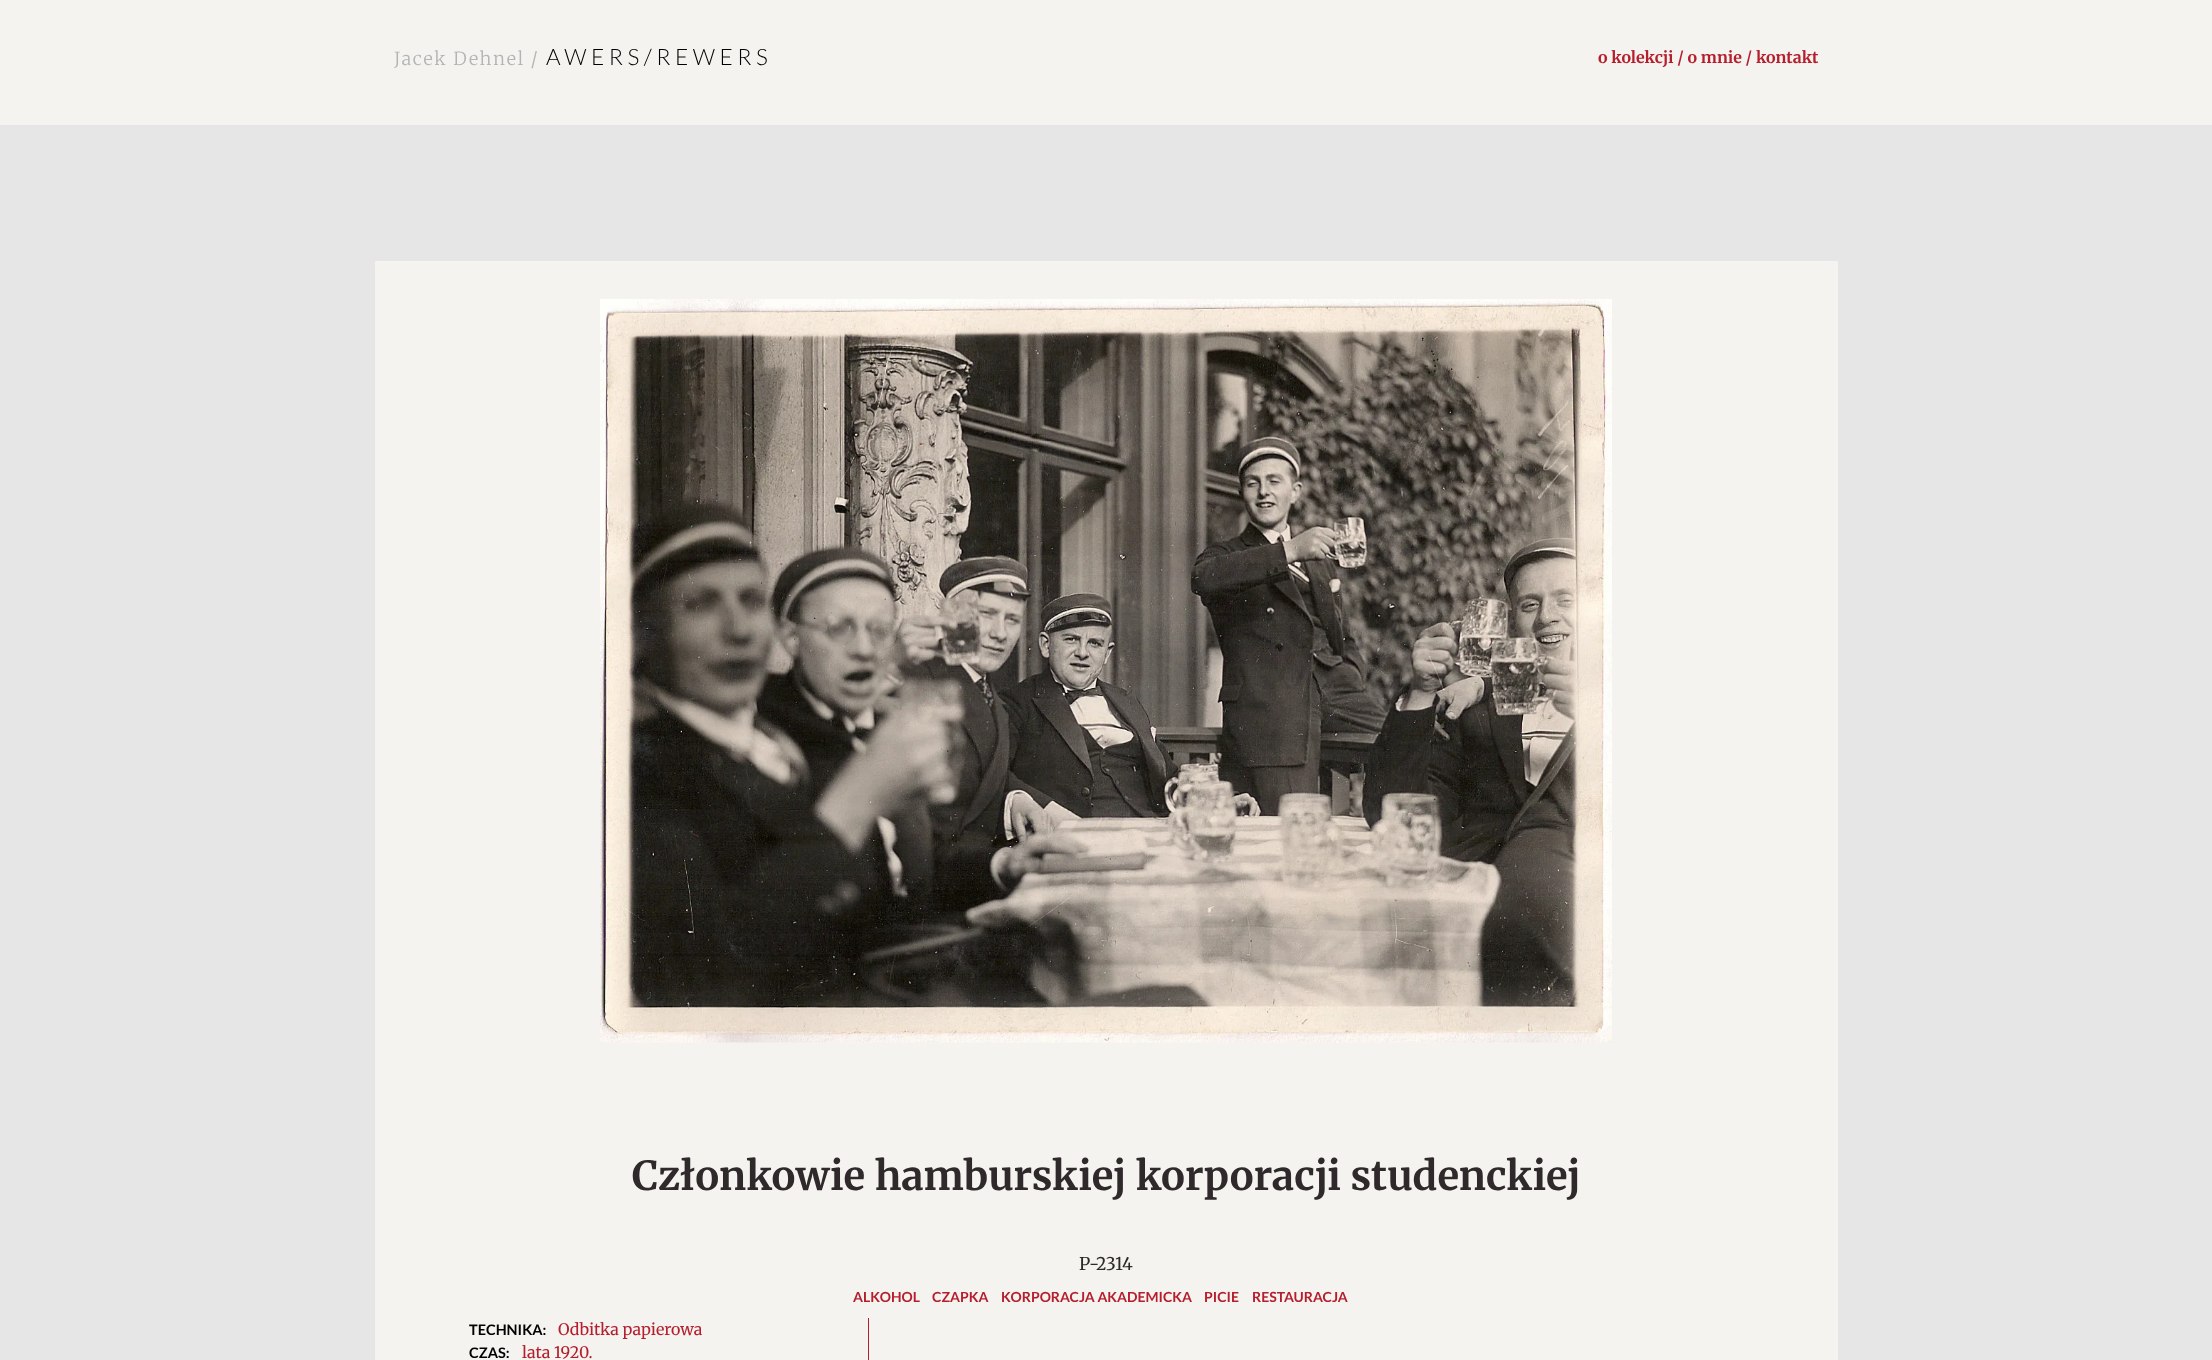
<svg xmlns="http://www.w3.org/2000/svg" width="2212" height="1360">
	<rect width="100%" height="100%" fill="#E6E6E6" />
	<rect x="0" y="0" width="2212" height="125" fill="#F4F3EF" />
	<text x="394" y="65" font-family="Merriweather" font-size="18" font-weight="300" letter-spacing="1.75" fill="#B2B4B6">Jacek Dehnel /</text>
	<text x="546" y="65" font-family="Lato" font-size="22.5" font-weight="300" letter-spacing="4.5" fill="#000000">AWERS/REWERS</text>
	<text x="1598" y="63" font-family="Merriweather" font-size="16" font-weight="700" fill="#B51E2D">o kolekcji / o mnie / kontakt</text>
	<rect x="375" y="261" width="1463" height="1099" fill="#F4F3EF" />
	<image x="600" y="299" width="1012" height="744" href="assets/img1.png" />
	<text x="632" y="1190" font-family="Merriweather" font-size="40" font-weight="700" fill="#2F292B">Członkowie hamburskiej korporacji studenckiej</text>
	<text x="1079" y="1270" font-family="Merriweather" font-size="17.5" fill="#2F292B">P-2314</text>
	<g font-family="Lato" font-size="14" font-weight="700" fill="#B51E2D">
		<text x="853" y="1302">ALKOHOL</text>
		<text x="932" y="1302">CZAPKA</text>
		<text x="1001" y="1302">KORPORACJA AKADEMICKA</text>
		<text x="1204" y="1302">PICIE</text>
		<text x="1252" y="1302">RESTAURACJA</text>
	</g>
	<rect x="868" y="1318" width="1" height="42" fill="#B51E2D" />
	<text x="469" y="1335" font-family="Lato" font-size="14.5" font-weight="700" fill="#000000">TECHNIKA:</text>
	<text x="558" y="1335" font-family="Merriweather" font-size="16" fill="#B51E2D">Odbitka papierowa</text>
	<text x="469" y="1358" font-family="Lato" font-size="14.5" font-weight="700" fill="#000000">CZAS:</text>
	<text x="522" y="1358" font-family="Merriweather" font-size="16" fill="#B51E2D">lata 1920.</text>
</svg>
